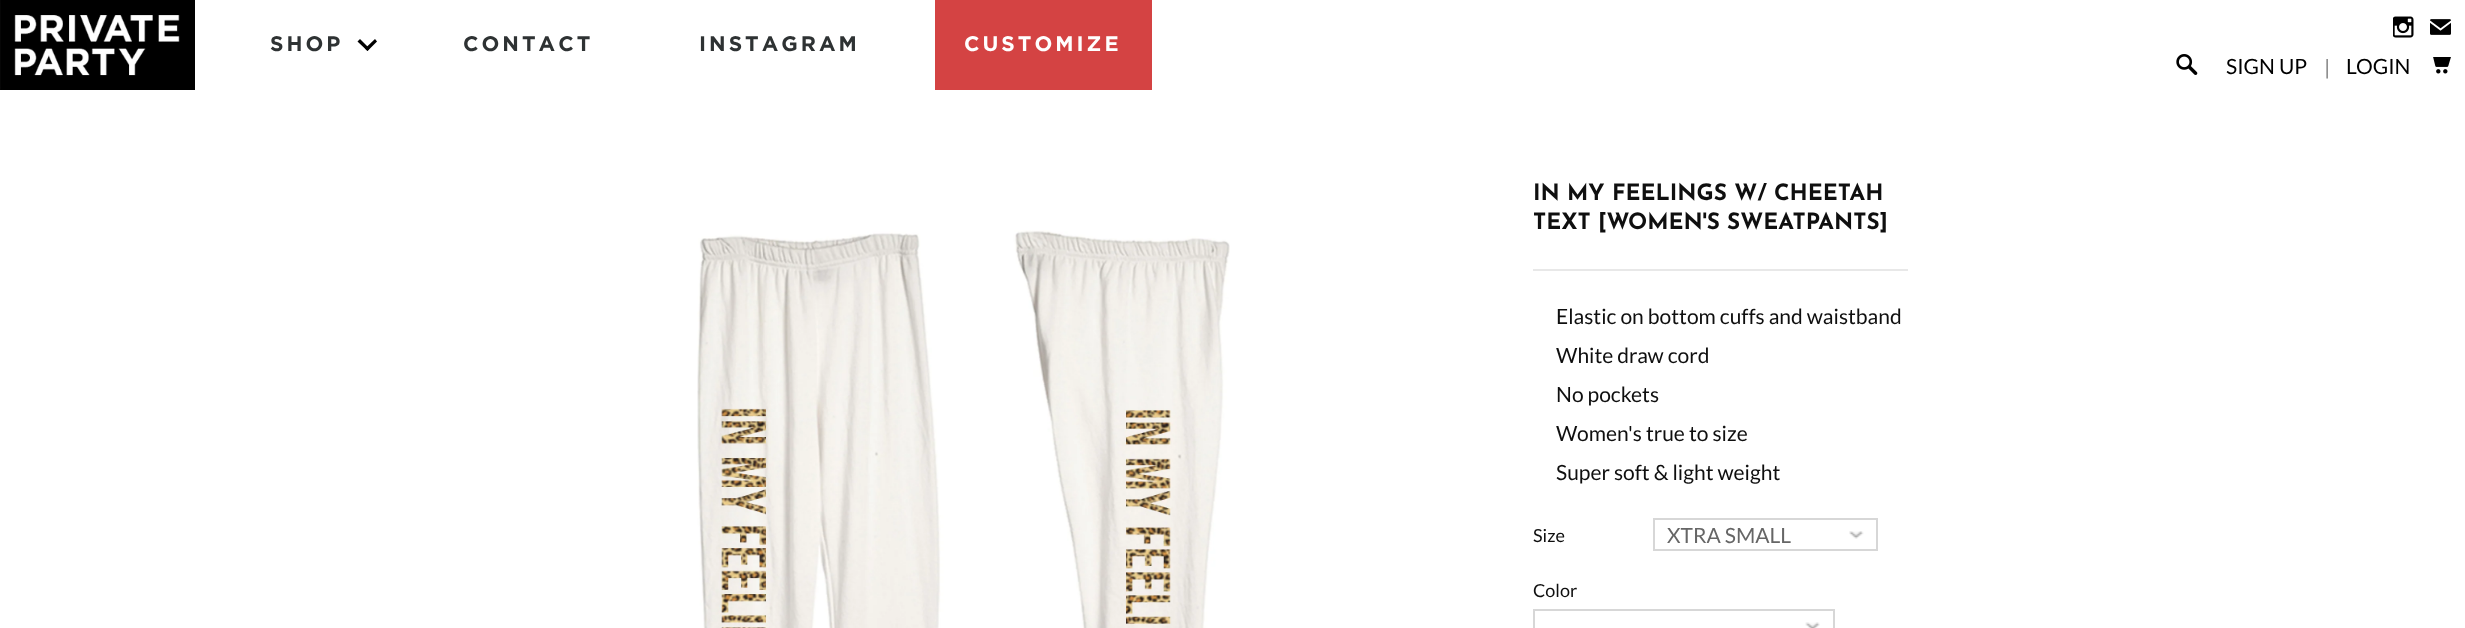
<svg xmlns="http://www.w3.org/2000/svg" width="2465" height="628">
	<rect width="100%" height="100%" fill="#FFFFFF" />
	<image x="0" y="0" width="195" height="90" href="assets/img1.png" />
	<text x="270" y="51" font-family="Gotham" font-size="21" font-weight="700" letter-spacing="3" fill="#2E3233">SHOP</text>
	<path d="M360 39L369.5 48.5L367.5 51L357.5 41.5Z" fill="#000000" />
	<path d="M365 48.5L375 39L377 41.5L367.5 51Z" fill="#000000" />
	<g font-family="Gotham" font-size="21" font-weight="700" letter-spacing="3" fill="#2E3233">
		<text x="463" y="51">CONTACT</text>
		<text x="699" y="51">INSTAGRAM</text>
	</g>
	<rect x="935" y="0" width="217" height="90" fill="#D44343" />
	<text x="964" y="51" font-family="Gotham" font-size="21" font-weight="700" letter-spacing="3" fill="#FFFFFF">CUSTOMIZE</text>
	<image x="2393" y="16" width="21" height="22" href="assets/img2.png" />
	<image x="2430" y="19" width="21" height="16" href="assets/img3.png" />
	<image x="2176" y="54" width="22" height="21" href="assets/img4.png" />
	<text x="2226" y="74" font-family="Lato" font-size="21" fill="#000000">SIGN UP</text>
	<text x="2324" y="75" font-family="Lato" font-size="21" fill="#808080">|</text>
	<text x="2346" y="74" font-family="Lato" font-size="21" fill="#000000">LOGIN</text>
	<image x="2433" y="57" width="18" height="17" href="assets/img5.png" />
	<image x="697" y="230" width="533" height="398" href="assets/img6.png" />
	<g font-family="Josefin Sans" font-size="22.5" font-weight="700" fill="#0F0F0F">
		<text x="1533" y="200">IN MY FEELINGS W/ CHEETAH</text>
		<text x="1533" y="229">TEXT [WOMEN'S SWEATPANTS]</text>
	</g>
	<rect x="1533" y="269" width="375" height="2" fill="#E8E8E8" />
	<g font-family="Lato" font-size="21" fill="#0F0F0F">
		<text x="1556" y="324">Elastic on bottom cuffs and waistband</text>
		<text x="1556" y="363">White draw cord</text>
		<text x="1556" y="402">No pockets</text>
		<text x="1556" y="441">Women's true to size</text>
		<text x="1556" y="480">Super soft &amp; light weight</text>
	</g>
	<text x="1533" y="542" font-family="Lato" font-size="18" fill="#0F0F0F">Size</text>
	<rect x="1654" y="519" width="223" height="31" fill="none" stroke="#D7D7D7" stroke-width="2" />
	<text x="1667" y="543" font-family="Lato" font-size="21" fill="#666666">XTRA SMALL</text>
	<image x="1849" y="531" width="15" height="8" href="assets/img7.png" />
	<text x="1533" y="597" font-family="Lato" font-size="18" fill="#0F0F0F">Color</text>
	<rect x="1534" y="610" width="300" height="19" fill="none" stroke="#D7D7D7" stroke-width="2" />
	<image x="1805" y="622" width="15" height="6" href="assets/img8.png" />
</svg>
